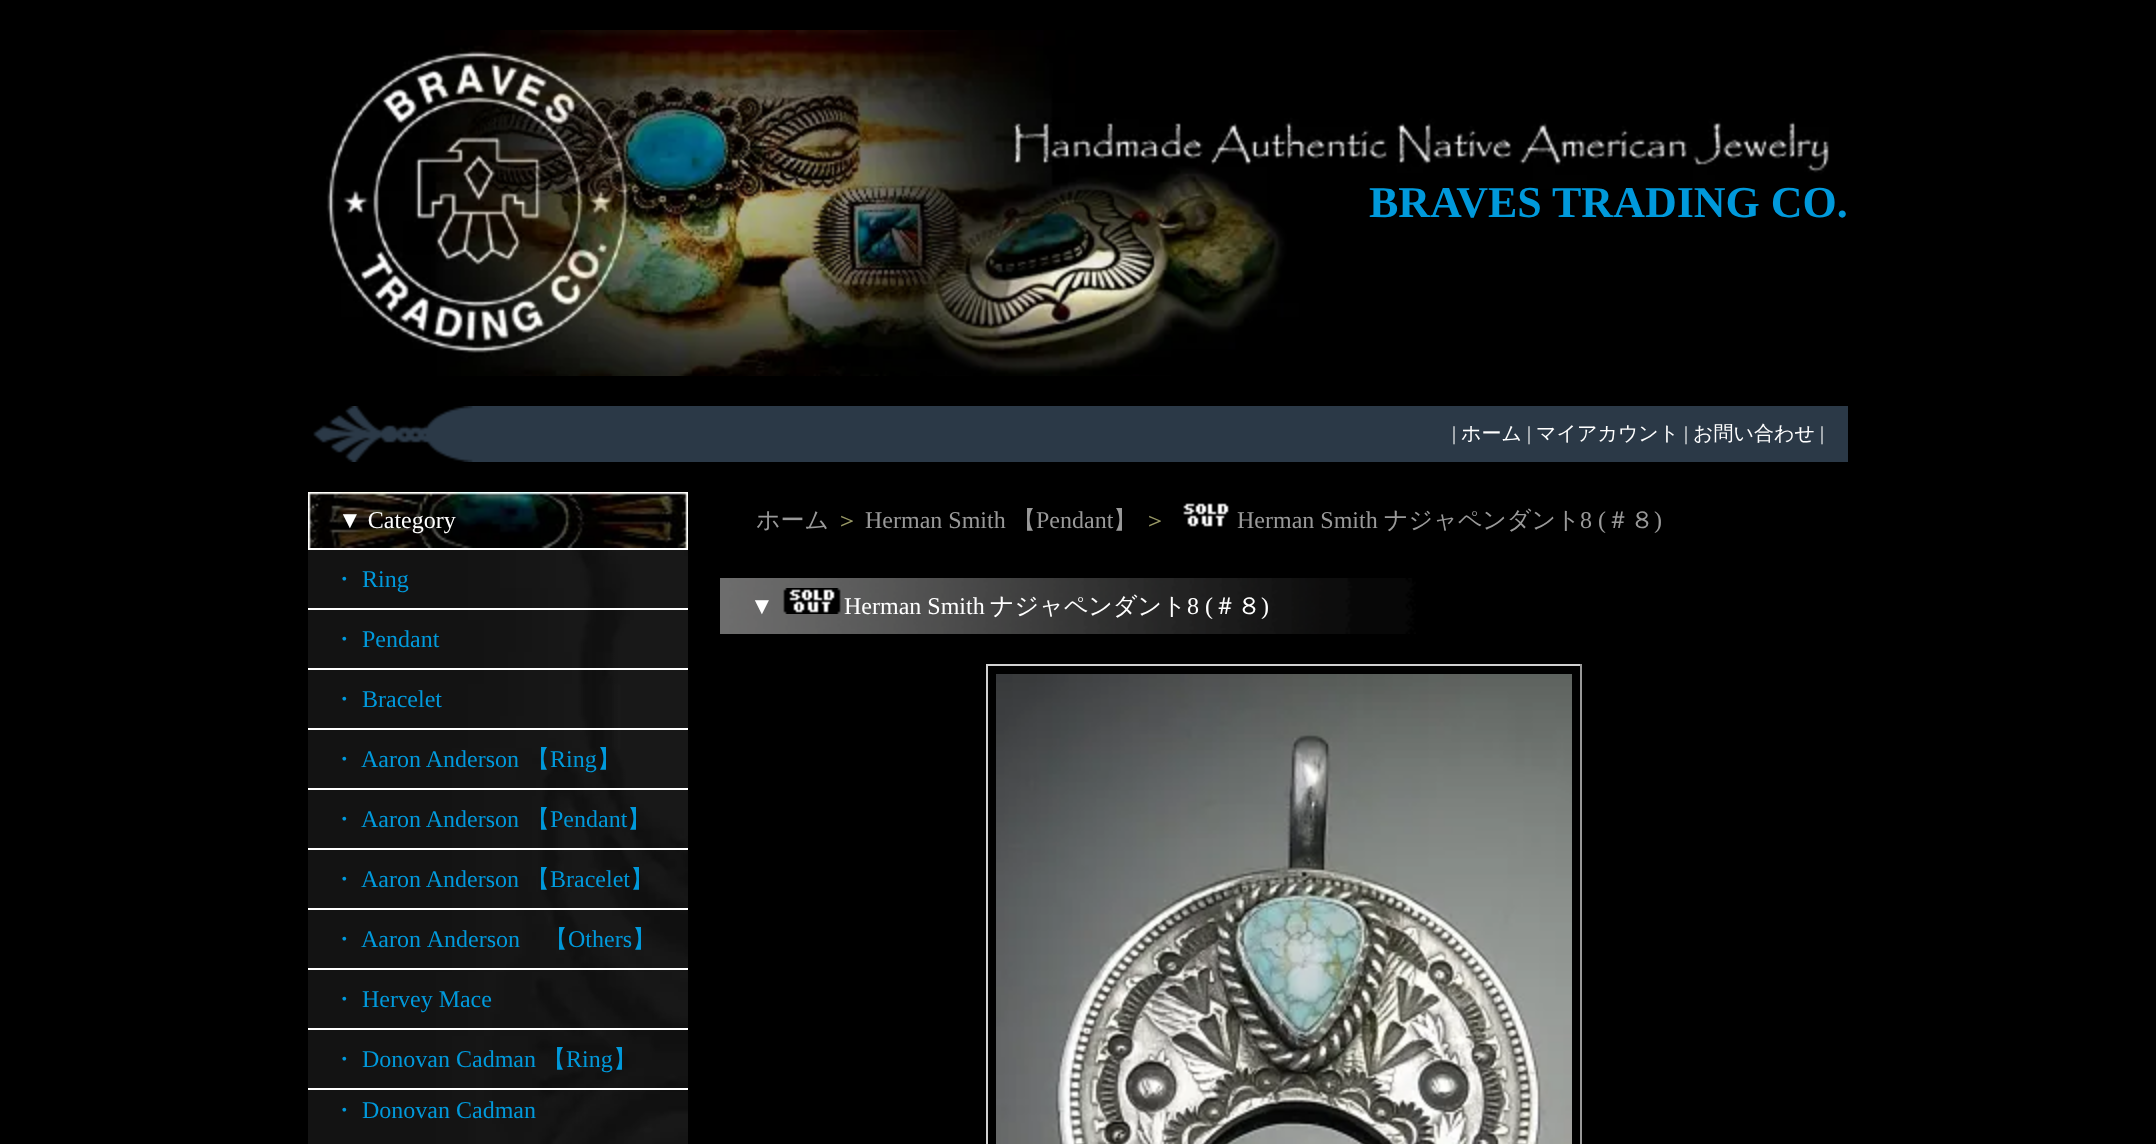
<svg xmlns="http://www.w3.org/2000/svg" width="2156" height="1144">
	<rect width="100%" height="100%" fill="#000000" />
	<image x="326" y="30" width="1503" height="346" href="assets/img1.png" />
	<text x="1369" y="217" font-family="Liberation Serif" font-size="44" font-weight="700" fill="#0099DB">BRAVES TRADING CO.</text>
	<image x="313" y="406" width="1535" height="56" href="assets/img2.png" />
	<text x="1452" y="440" font-family="Liberation Serif" font-size="20" fill="#FFFFFF">|</text>
	<text x="1461" y="440" font-family="WenQuanYi Zen Hei" font-size="20" font-weight="500" fill="#FFFFFF">ホーム</text>
	<text x="1527" y="440" font-family="Liberation Serif" font-size="20" fill="#FFFFFF">|</text>
	<text x="1536" y="440" font-family="WenQuanYi Zen Hei" font-size="20" font-weight="500" fill="#FFFFFF">マイアカウント</text>
	<text x="1684" y="440" font-family="Liberation Serif" font-size="20" fill="#FFFFFF">|</text>
	<text x="1693" y="440" font-family="WenQuanYi Zen Hei" font-size="20" font-weight="500" fill="#FFFFFF">お問い合わせ</text>
	<text x="1820" y="440" font-family="Liberation Serif" font-size="20" fill="#FFFFFF">|</text>
	<image x="308" y="550" width="380" height="594" href="assets/img3.png" />
	<image x="308" y="492" width="380" height="56" href="assets/img4.png" />
	<rect x="308" y="548" width="380" height="2" fill="#FFFFFF" />
	<text x="338" y="528" font-family="Liberation Serif" font-size="24" fill="#FFFFFF">▼ Category</text>
	<rect x="308" y="608" width="380" height="2" fill="#FFFFFF" />
	<text x="332" y="587" font-family="WenQuanYi Zen Hei" font-size="24" font-weight="500" fill="#0099DB">・</text>
	<text x="362" y="587" font-family="Liberation Serif" font-size="24" fill="#0099DB">Ring</text>
	<rect x="308" y="668" width="380" height="2" fill="#FFFFFF" />
	<text x="332" y="647" font-family="WenQuanYi Zen Hei" font-size="24" font-weight="500" fill="#0099DB">・</text>
	<text x="362" y="647" font-family="Liberation Serif" font-size="24" fill="#0099DB">Pendant</text>
	<rect x="308" y="728" width="380" height="2" fill="#FFFFFF" />
	<text x="332" y="707" font-family="WenQuanYi Zen Hei" font-size="24" font-weight="500" fill="#0099DB">・</text>
	<text x="362" y="707" font-family="Liberation Serif" font-size="24" fill="#0099DB">Bracelet</text>
	<rect x="308" y="788" width="380" height="2" fill="#FFFFFF" />
	<text x="332" y="767" font-family="WenQuanYi Zen Hei" font-size="24" font-weight="500" fill="#0099DB">・</text>
	<text x="361" y="767" font-family="Liberation Serif" font-size="24" fill="#0099DB">Aaron Anderson</text>
	<text x="526" y="767" font-family="WenQuanYi Zen Hei" font-size="24" font-weight="500" fill="#0099DB">【</text>
	<text x="550" y="767" font-family="Liberation Serif" font-size="24" fill="#0099DB">Ring</text>
	<text x="597" y="767" font-family="WenQuanYi Zen Hei" font-size="24" font-weight="500" fill="#0099DB">】</text>
	<rect x="308" y="848" width="380" height="2" fill="#FFFFFF" />
	<text x="332" y="827" font-family="WenQuanYi Zen Hei" font-size="24" font-weight="500" fill="#0099DB">・</text>
	<text x="361" y="827" font-family="Liberation Serif" font-size="24" fill="#0099DB">Aaron Anderson</text>
	<text x="526" y="827" font-family="WenQuanYi Zen Hei" font-size="24" font-weight="500" fill="#0099DB">【</text>
	<text x="550" y="827" font-family="Liberation Serif" font-size="24" fill="#0099DB">Pendant</text>
	<text x="627" y="827" font-family="WenQuanYi Zen Hei" font-size="24" font-weight="500" fill="#0099DB">】</text>
	<rect x="308" y="908" width="380" height="2" fill="#FFFFFF" />
	<text x="332" y="887" font-family="WenQuanYi Zen Hei" font-size="24" font-weight="500" fill="#0099DB">・</text>
	<text x="361" y="887" font-family="Liberation Serif" font-size="24" fill="#0099DB">Aaron Anderson</text>
	<text x="526" y="887" font-family="WenQuanYi Zen Hei" font-size="24" font-weight="500" fill="#0099DB">【</text>
	<text x="550" y="887" font-family="Liberation Serif" font-size="24" fill="#0099DB">Bracelet</text>
	<text x="630" y="887" font-family="WenQuanYi Zen Hei" font-size="24" font-weight="500" fill="#0099DB">】</text>
	<rect x="308" y="968" width="380" height="2" fill="#FFFFFF" />
	<text x="332" y="947" font-family="WenQuanYi Zen Hei" font-size="24" font-weight="500" fill="#0099DB">・</text>
	<text x="361" y="947" word-spacing="1" font-family="Liberation Serif" font-size="24" fill="#0099DB">Aaron Anderson</text>
	<text x="544" y="947" font-family="WenQuanYi Zen Hei" font-size="24" font-weight="500" fill="#0099DB">【</text>
	<text x="568" y="947" font-family="Liberation Serif" font-size="24" fill="#0099DB">Others</text>
	<text x="632" y="947" font-family="WenQuanYi Zen Hei" font-size="24" font-weight="500" fill="#0099DB">】</text>
	<rect x="308" y="1028" width="380" height="2" fill="#FFFFFF" />
	<text x="332" y="1007" font-family="WenQuanYi Zen Hei" font-size="24" font-weight="500" fill="#0099DB">・</text>
	<text x="362" y="1007" font-family="Liberation Serif" font-size="24" fill="#0099DB">Hervey Mace</text>
	<rect x="308" y="1088" width="380" height="2" fill="#FFFFFF" />
	<text x="332" y="1067" font-family="WenQuanYi Zen Hei" font-size="24" font-weight="500" fill="#0099DB">・</text>
	<text x="362" y="1067" font-family="Liberation Serif" font-size="24" fill="#0099DB">Donovan Cadman</text>
	<text x="542" y="1067" font-family="WenQuanYi Zen Hei" font-size="24" font-weight="500" fill="#0099DB">【</text>
	<text x="566" y="1067" font-family="Liberation Serif" font-size="24" fill="#0099DB">Ring</text>
	<g font-family="WenQuanYi Zen Hei" font-size="24" font-weight="500" fill="#0099DB">
		<text x="613" y="1067">】</text>
		<text x="332" y="1118">・</text>
	</g>
	<text x="362" y="1118" font-family="Liberation Serif" font-size="24" fill="#0099DB">Donovan Cadman</text>
	<text x="756" y="528" font-family="WenQuanYi Zen Hei" font-size="24" font-weight="500" fill="#999999">ホーム</text>
	<text x="835" y="528" font-family="WenQuanYi Zen Hei" font-size="24" font-weight="500" fill="#999966">＞</text>
	<text x="865" y="528" font-family="Liberation Serif" font-size="24" fill="#999999">Herman Smith</text>
	<text x="1012" y="528" font-family="WenQuanYi Zen Hei" font-size="24" font-weight="500" fill="#999999">【</text>
	<text x="1036" y="528" font-family="Liberation Serif" font-size="24" fill="#999999">Pendant</text>
	<text x="1113" y="528" font-family="WenQuanYi Zen Hei" font-size="24" font-weight="500" fill="#999999">】</text>
	<text x="1143" y="528" font-family="WenQuanYi Zen Hei" font-size="24" font-weight="500" fill="#999966">＞</text>
	<image x="1183" y="503" width="46" height="24" href="assets/img5.png" />
	<text x="1237" y="528" font-family="Liberation Serif" font-size="24" fill="#999999">Herman Smith</text>
	<text x="1384" y="528" font-family="WenQuanYi Zen Hei" font-size="24" font-weight="500" fill="#999999">ナジャペンダント</text>
	<text x="1580" y="528" font-family="Liberation Serif" font-size="24" fill="#999999">8 (</text>
	<text x="1606" y="528" font-family="WenQuanYi Zen Hei" font-size="24" font-weight="500" fill="#999999">＃８</text>
	<text x="1654" y="528" font-family="Liberation Serif" font-size="24" fill="#999999">)</text>
	<image x="720" y="578" width="696" height="56" href="assets/img6.png" />
	<text x="750" y="614" font-family="Liberation Serif" font-size="24" fill="#FFFFFF">▼</text>
	<image x="783" y="588" width="58" height="26" href="assets/img7.png" />
	<text x="844" y="614" font-family="Liberation Serif" font-size="24" fill="#FFFFFF">Herman Smith</text>
	<text x="990" y="614" font-family="WenQuanYi Zen Hei" font-size="24" font-weight="500" fill="#FFFFFF">ナジャペンダント</text>
	<text x="1187" y="614" font-family="Liberation Serif" font-size="24" fill="#FFFFFF">8 (</text>
	<text x="1213" y="614" font-family="WenQuanYi Zen Hei" font-size="24" font-weight="500" fill="#FFFFFF">＃８</text>
	<text x="1261" y="614" font-family="Liberation Serif" font-size="24" fill="#FFFFFF">)</text>
	<rect x="986" y="664" width="596" height="2" fill="#D1D1D1" />
	<rect x="986" y="664" width="2" height="480" fill="#D1D1D1" />
	<image x="996" y="674" width="576" height="470" href="assets/img8.png" />
	<rect x="1580" y="664" width="2" height="480" fill="#989898" />
</svg>
